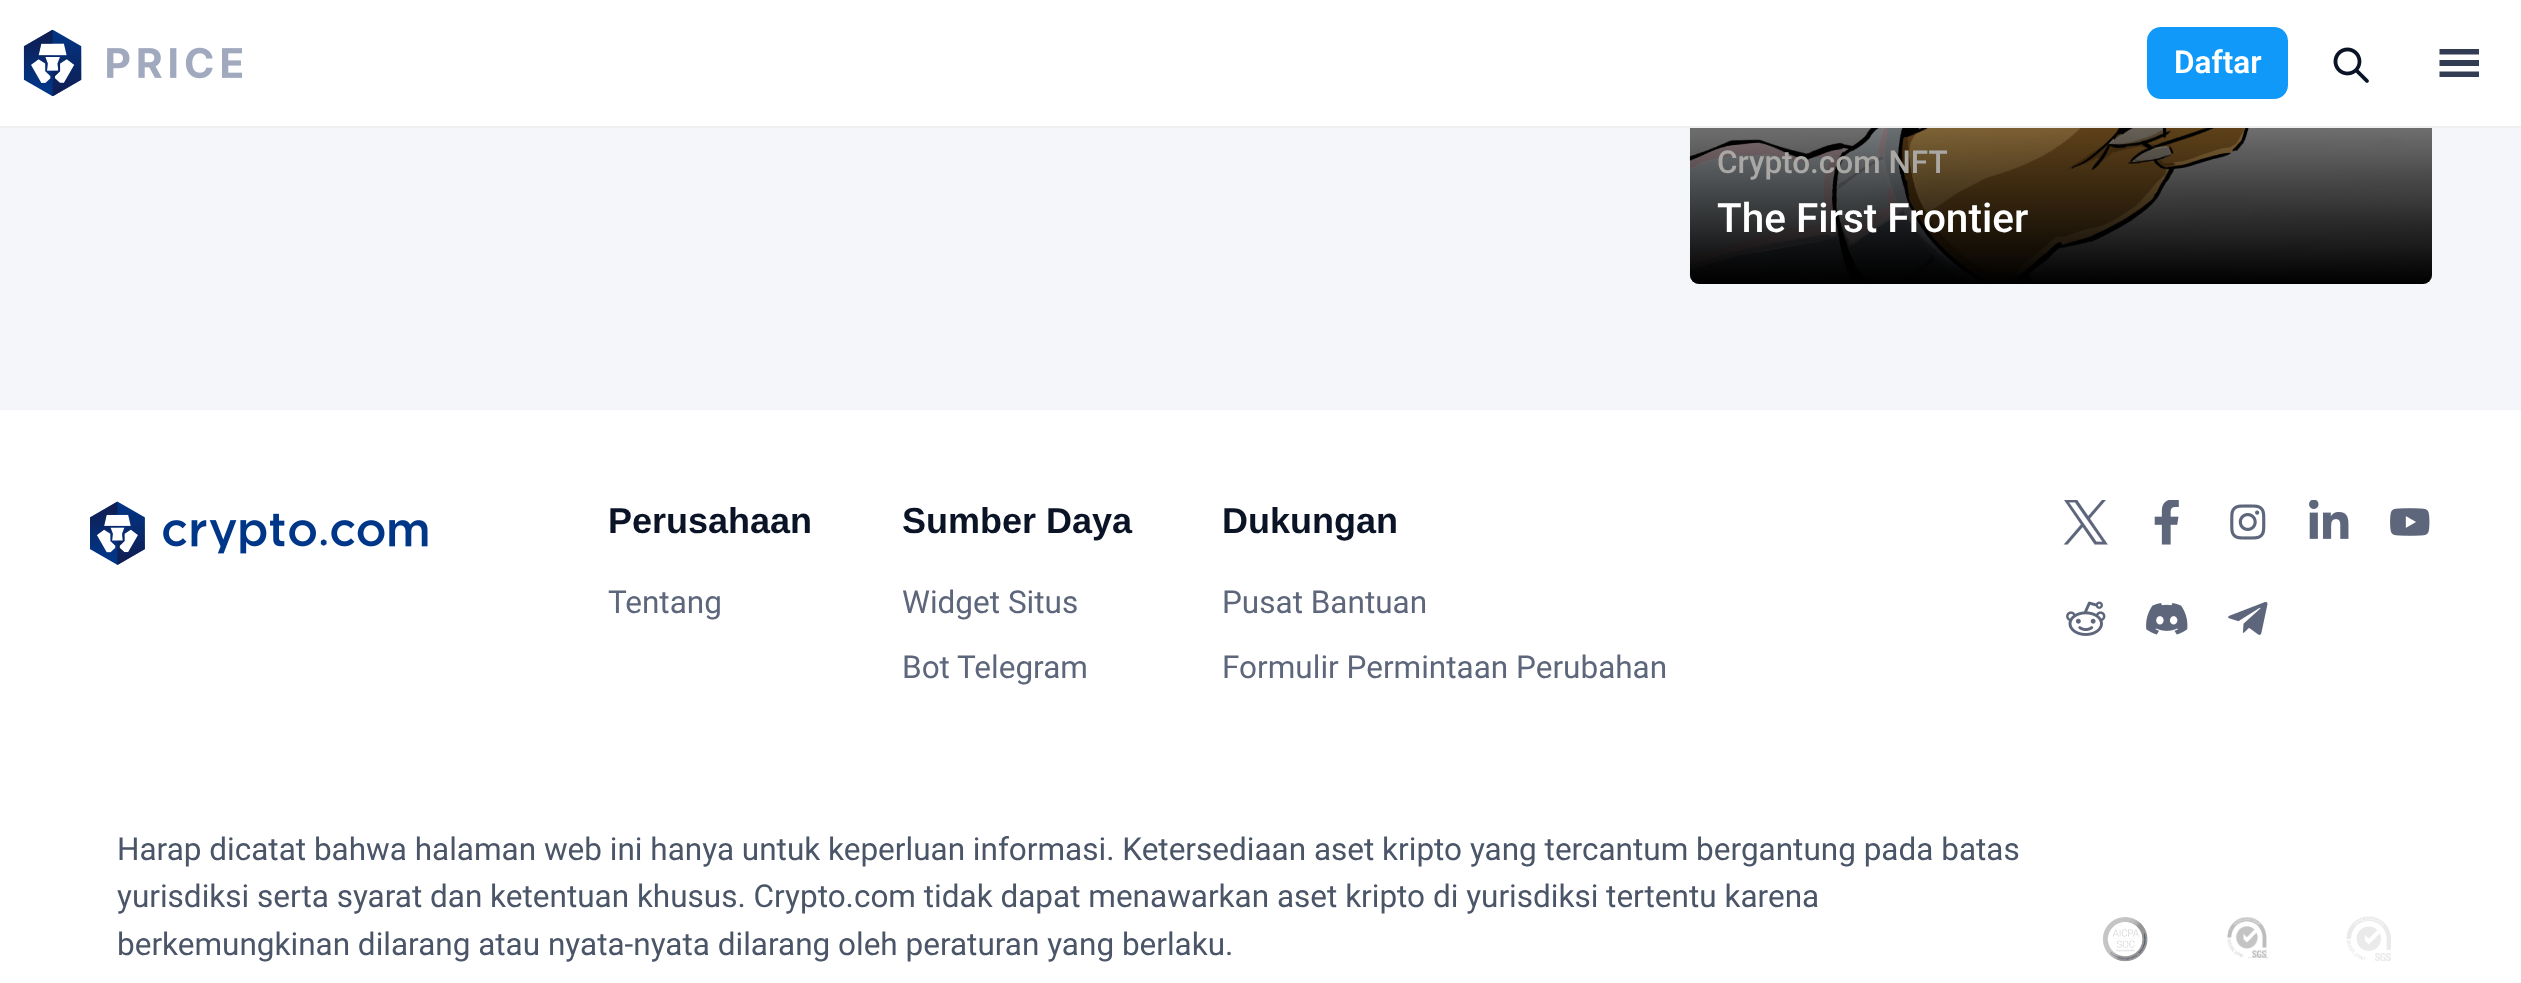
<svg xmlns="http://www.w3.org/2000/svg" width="2521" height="983">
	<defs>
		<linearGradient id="g1" gradientUnits="userSpaceOnUse" x1="2061" y1="284" x2="2061" y2="-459"><stop offset="0" stop-color="#000000" /><stop offset="0.3" stop-color="#000000" stop-opacity="0.3" /><stop offset="0.4" stop-color="#000000" stop-opacity="0" /></linearGradient>
	</defs>
	<rect width="100%" height="100%" fill="#F5F6F9" />
	<rect x="1690" y="-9" width="742" height="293" rx="9" fill="#6D6D6D" />
	<image x="1689" y="128" width="743" height="156" href="assets/img3.png" />
	<rect x="1690" y="-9" width="742" height="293" rx="9" fill="url(#g1)" />
	<rect x="0" y="0" width="2521" height="126" fill="#FFFFFF" />
	<image x="23" y="29" width="220" height="68" href="assets/img1.png" />
	<rect x="2147" y="27" width="141" height="72" rx="14" fill="#1199FA" />
	<text x="2174" y="73" font-family="Roboto" font-size="31.5" font-weight="600" fill="#FFFFFF">Daftar</text>
	<image x="2333" y="47" width="36" height="36" href="assets/img2.png" />
	<path d="M2439.5 49V54.5H2479V49ZM2439.5 60V66H2479V60ZM2439.5 71.5V77H2479V71.5Z" fill="#323C52" />
	<rect x="0" y="126" width="2521" height="2" fill="#F0F0F0" />
	<text x="1717" y="173" font-family="Roboto" font-size="31.5" font-weight="500" fill="#AAA8A5">Crypto.com NFT</text>
	<text x="1717" y="232" font-family="Roboto" font-size="40.5" font-weight="500" fill="#FFFFFF">The First Frontier</text>
	<rect x="0" y="410" width="2521" height="573" fill="#FFFFFF" />
	<image x="90" y="501" width="338" height="64" href="assets/img4.png" />
	<text x="608" y="533" font-family="Liberation Sans" font-size="36" font-weight="700" fill="#0B1426">Perusahaan</text>
	<text x="608" y="613" font-family="Roboto" font-size="31.5" fill="#5D667B">Tentang</text>
	<text x="902" y="533" font-family="Liberation Sans" font-size="36" font-weight="700" fill="#0B1426">Sumber Daya</text>
	<g font-family="Roboto" font-size="31.5" fill="#5D667B">
		<text x="902" y="613">Widget Situs</text>
		<text x="902" y="678">Bot Telegram</text>
	</g>
	<text x="1222" y="533" font-family="Liberation Sans" font-size="36" font-weight="700" fill="#0B1426">Dukungan</text>
	<g font-family="Roboto" font-size="31.5" fill="#5D667B">
		<text x="1222" y="613">Pusat Bantuan</text>
		<text x="1222" y="678">Formulir Permintaan Perubahan</text>
	</g>
	<g font-family="Roboto" font-size="31.5" fill="#4A5568">
		<text x="117" y="860">Harap dicatat bahwa halaman web ini hanya untuk keperluan informasi. Ketersediaan aset kripto yang tercantum bergantung pada batas</text>
		<text x="117" y="907">yurisdiksi serta syarat dan ketentuan khusus. Crypto.com tidak dapat menawarkan aset kripto di yurisdiksi tertentu karena</text>
		<text x="117" y="955">berkemungkinan dilarang atau nyata-nyata dilarang oleh peraturan yang berlaku.</text>
	</g>
	<image x="2063" y="500" width="45" height="45" href="assets/img5.png" />
	<image x="2154" y="500" width="25" height="45" href="assets/img6.png" />
	<image x="2230" y="504" width="36" height="36" href="assets/img7.png" />
	<image x="2309" y="500" width="40" height="39" href="assets/img8.png" />
	<image x="2390" y="508" width="40" height="28" href="assets/img9.png" />
	<image x="2066" y="601" width="40" height="35" href="assets/img10.png" />
	<image x="2146" y="603" width="42" height="32" href="assets/img11.png" />
	<image x="2228" y="602" width="40" height="33" href="assets/img12.png" />
	<image x="2102" y="917" width="46" height="45" href="assets/img13.png" />
	<image x="2227" y="917" width="42" height="43" href="assets/img14.png" />
	<image x="2346" y="916" width="45" height="45" href="assets/img15.png" />
</svg>
